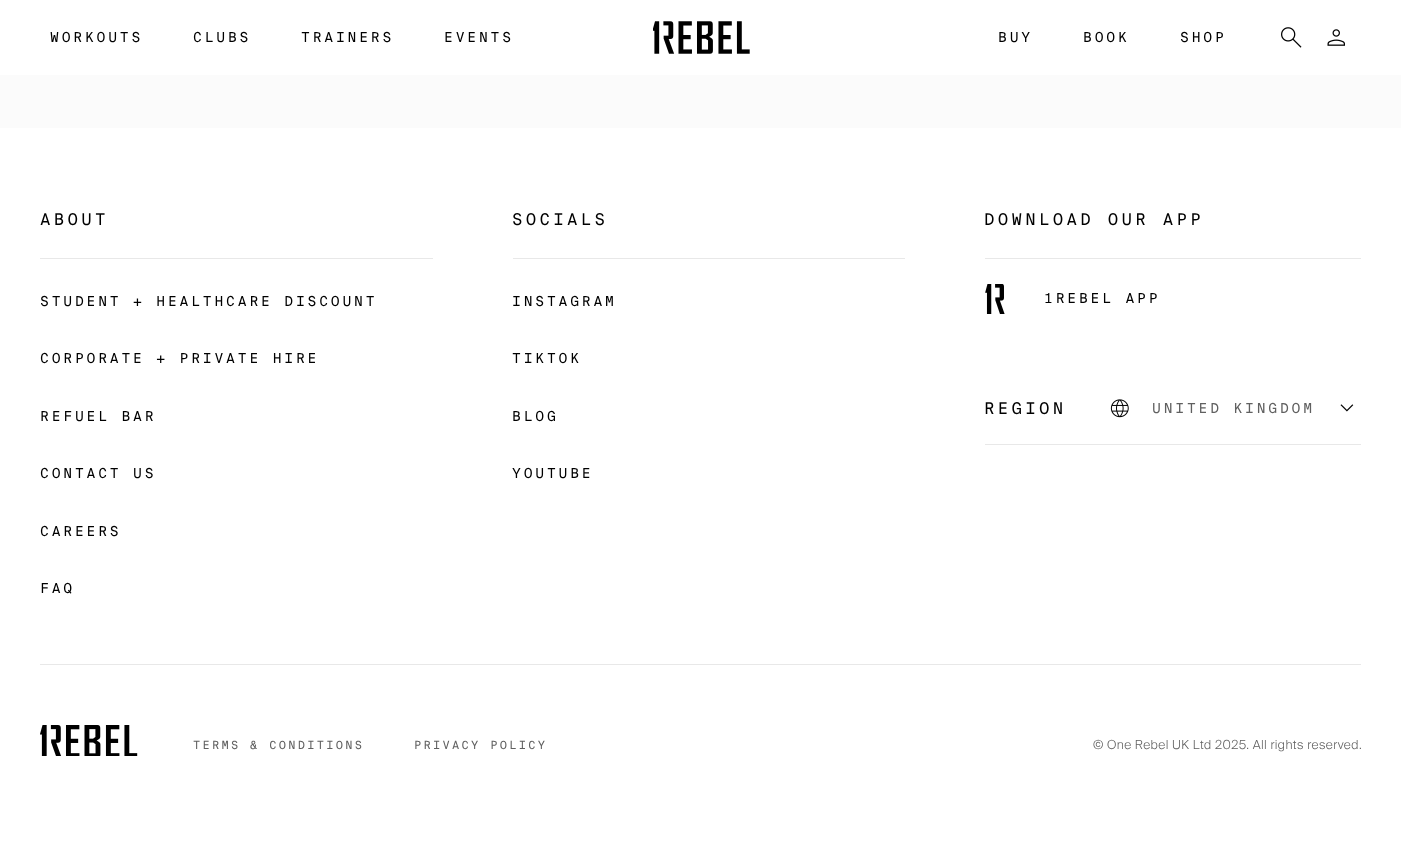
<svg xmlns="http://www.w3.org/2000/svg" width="1401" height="846">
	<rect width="100%" height="100%" fill="#FBFBFB" />
	<rect x="0" y="0" width="1401" height="75" fill="#FFFFFF" />
	<g font-family="'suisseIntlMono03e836'" font-size="13.75" letter-spacing="2.75" fill="#000000">
		<text x="50" y="42">WORKOUTS</text>
		<text x="193" y="42">CLUBS</text>
		<text x="301" y="42">TRAINERS</text>
		<text x="444" y="42">EVENTS</text>
	</g>
	<image x="653" y="21" width="97" height="33" href="assets/img1.png" />
	<g font-family="'suisseIntlMono03e836'" font-size="13.75" letter-spacing="2.75" fill="#000000">
		<text x="998" y="42">BUY</text>
		<text x="1083" y="42">BOOK</text>
		<text x="1180" y="42">SHOP</text>
	</g>
	<image x="1281" y="27" width="21" height="21" href="assets/img2.png" />
	<image x="1327" y="29" width="18" height="17" href="assets/img3.png" />
	<rect x="0" y="128" width="1401" height="718" fill="#FFFFFF" />
	<text x="40" y="225" font-family="'suisseIntlMono03e836'" font-size="16.25" letter-spacing="3.25" fill="#000000">ABOUT</text>
	<rect x="40" y="258" width="393" height="1" fill="#E8E8E8" />
	<g font-family="'suisseIntlMono03e836'" font-size="13.75" letter-spacing="2.75" fill="#000000">
		<text x="40" y="306">STUDENT + HEALTHCARE DISCOUNT</text>
		<text x="40" y="363">CORPORATE + PRIVATE HIRE</text>
		<text x="40" y="421">REFUEL BAR</text>
		<text x="40" y="478">CONTACT US</text>
		<text x="40" y="536">CAREERS</text>
		<text x="40" y="593">FAQ</text>
	</g>
	<text x="512" y="225" font-family="'suisseIntlMono03e836'" font-size="16.25" letter-spacing="3.25" fill="#000000">SOCIALS</text>
	<rect x="513" y="258" width="392" height="1" fill="#E8E8E8" />
	<g font-family="'suisseIntlMono03e836'" font-size="13.75" letter-spacing="2.75" fill="#000000">
		<text x="512" y="306">INSTAGRAM</text>
		<text x="512" y="363">TIKTOK</text>
		<text x="512" y="421">BLOG</text>
		<text x="512" y="478">YOUTUBE</text>
	</g>
	<text x="984" y="225" font-family="'suisseIntlMono03e836'" font-size="16.25" letter-spacing="3.25" fill="#000000">DOWNLOAD OUR APP</text>
	<rect x="985" y="258" width="376" height="1" fill="#E8E8E8" />
	<image x="985" y="284" width="20" height="30" href="assets/img4.png" />
	<text x="1044" y="303" font-family="'suisseIntlMono03e836'" font-size="13.75" letter-spacing="2.75" fill="#000000">1REBEL APP</text>
	<rect x="985" y="444" width="376" height="1" fill="#E8E8E8" />
	<text x="984" y="414" font-family="'suisseIntlMono03e836'" font-size="16.25" letter-spacing="3.25" fill="#000000">REGION</text>
	<image x="1110" y="399" width="19" height="19" href="assets/img5.png" />
	<text x="1152" y="413" font-family="'suisseIntlMono03e836'" font-size="13.75" letter-spacing="2.75" fill="#606060">UNITED KINGDOM</text>
	<image x="1340" y="404" width="14" height="8" href="assets/img6.png" />
	<rect x="40" y="664" width="1321" height="1" fill="#E8E8E8" />
	<image x="40" y="725" width="98" height="31" href="assets/img7.png" />
	<g font-family="'suisseIntlMono03e836'" font-size="11.25" letter-spacing="2.25" fill="#606060">
		<text x="193" y="749">TERMS &amp; CONDITIONS</text>
		<text x="414" y="749">PRIVACY POLICY</text>
	</g>
	<text x="1093" y="749" font-family="'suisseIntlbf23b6'" font-size="12.5" font-weight="300" letter-spacing="0.4" fill="#606060">© One Rebel UK Ltd 2025. All rights reserved.</text>
</svg>
